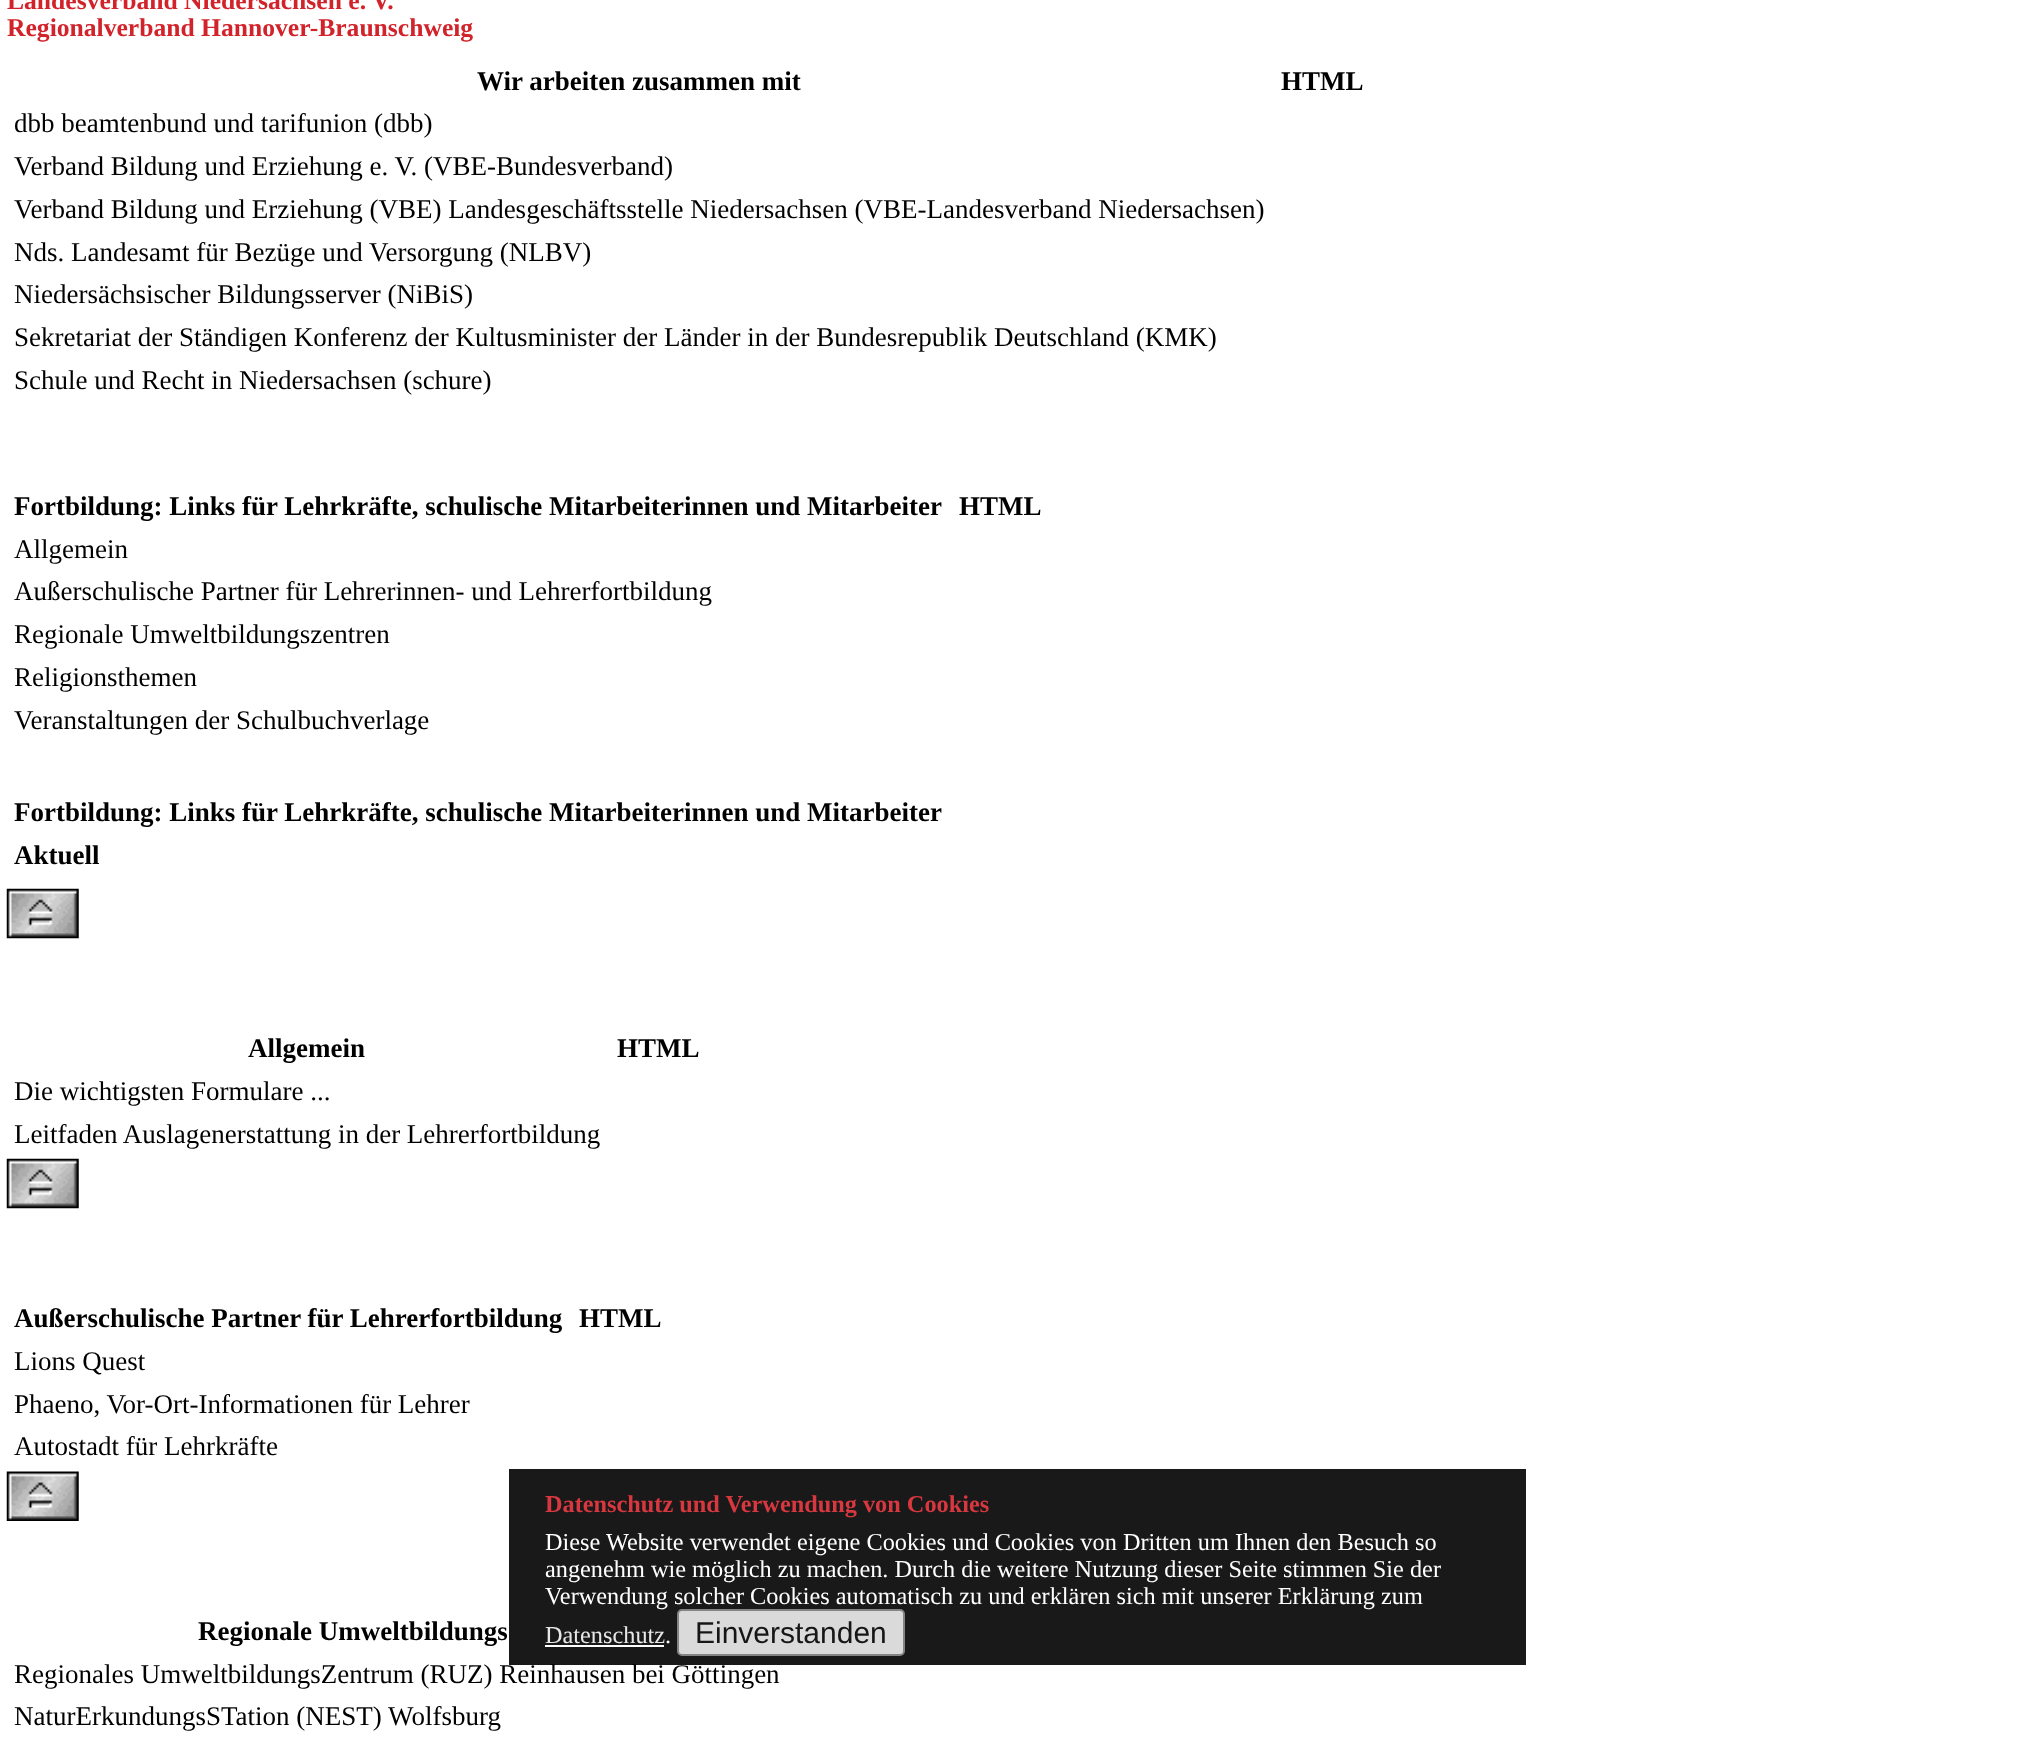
<svg xmlns="http://www.w3.org/2000/svg" width="2034" height="1755">
	<rect width="100%" height="100%" fill="#FFFFFF" />
	<g font-family="Liberation Serif" font-size="25.6" font-weight="700" fill="#D2222A">
		<text x="7" y="9">Landesverband Niedersachsen e. V.</text>
		<text x="7" y="36">Regionalverband Hannover-Braunschweig</text>
	</g>
	<g font-family="Liberation Serif" font-size="27" font-weight="700" fill="#000000">
		<text x="477" y="90">Wir arbeiten zusammen mit</text>
		<text x="1281" y="90">HTML</text>
	</g>
	<g font-family="Liberation Serif" font-size="27" fill="#000000">
		<text x="14" y="132">dbb beamtenbund und tarifunion (dbb)</text>
		<text x="14" y="175">Verband Bildung und Erziehung e. V. (VBE-Bundesverband)</text>
		<text x="14" y="218">Verband Bildung und Erziehung (VBE) Landesgeschäftsstelle Niedersachsen (VBE-Landesverband Niedersachsen)</text>
		<text x="14" y="261">Nds. Landesamt für Bezüge und Versorgung (NLBV)</text>
		<text x="14" y="303">Niedersächsischer Bildungsserver (NiBiS)</text>
		<text x="14" y="346">Sekretariat der Ständigen Konferenz der Kultusminister der Länder in der Bundesrepublik Deutschland (KMK)</text>
		<text x="14" y="389">Schule und Recht in Niedersachsen (schure)</text>
	</g>
	<g font-family="Liberation Serif" font-size="27" font-weight="700" fill="#000000">
		<text x="14" y="515">Fortbildung: Links für Lehrkräfte, schulische Mitarbeiterinnen und Mitarbeiter</text>
		<text x="959" y="515">HTML</text>
	</g>
	<g font-family="Liberation Serif" font-size="27" fill="#000000">
		<text x="14" y="558">Allgemein</text>
		<text x="14" y="600">Außerschulische Partner für Lehrerinnen- und Lehrerfortbildung</text>
		<text x="14" y="643">Regionale Umweltbildungszentren</text>
		<text x="14" y="686">Religionsthemen</text>
		<text x="14" y="729">Veranstaltungen der Schulbuchverlage</text>
	</g>
	<g font-family="Liberation Serif" font-size="27" font-weight="700" fill="#000000">
		<text x="14" y="821">Fortbildung: Links für Lehrkräfte, schulische Mitarbeiterinnen und Mitarbeiter</text>
		<text x="14" y="864">Aktuell</text>
	</g>
	<image x="6" y="888" width="73" height="51" href="assets/img1.png" />
	<g font-family="Liberation Serif" font-size="27" font-weight="700" fill="#000000">
		<text x="248" y="1057">Allgemein</text>
		<text x="617" y="1057">HTML</text>
	</g>
	<g font-family="Liberation Serif" font-size="27" fill="#000000">
		<text x="14" y="1100">Die wichtigsten Formulare ...</text>
		<text x="14" y="1143">Leitfaden Auslagenerstattung in der Lehrerfortbildung</text>
	</g>
	<image x="6" y="1158" width="73" height="51" href="assets/img2.png" />
	<g font-family="Liberation Serif" font-size="27" font-weight="700" fill="#000000">
		<text x="14" y="1327">Außerschulische Partner für Lehrerfortbildung</text>
		<text x="579" y="1327">HTML</text>
	</g>
	<g font-family="Liberation Serif" font-size="27" fill="#000000">
		<text x="14" y="1370">Lions Quest</text>
		<text x="14" y="1413">Phaeno, Vor-Ort-Informationen für Lehrer</text>
		<text x="14" y="1455">Autostadt für Lehrkräfte</text>
	</g>
	<image x="6" y="1471" width="73" height="50" href="assets/img3.png" />
	<text x="198" y="1640" font-family="Liberation Serif" font-size="27" font-weight="700" fill="#000000">Regionale Umweltbildungs</text>
	<g font-family="Liberation Serif" font-size="27" fill="#000000">
		<text x="14" y="1683">Regionales UmweltbildungsZentrum (RUZ) Reinhausen bei Göttingen</text>
		<text x="14" y="1725">NaturErkundungsSTation (NEST) Wolfsburg</text>
	</g>
	<rect x="509" y="1469" width="1017" height="196" fill="#000000" fill-opacity="0.9" />
	<text x="545" y="1512" font-family="Liberation Serif" font-size="24.3" font-weight="700" fill="#D7383F">Datenschutz und Verwendung von Cookies</text>
	<g font-family="Liberation Serif" font-size="24.3" fill="#FFFFFF">
		<text x="545" y="1550">Diese Website verwendet eigene Cookies und Cookies von Dritten um Ihnen den Besuch so</text>
		<text x="545" y="1577">angenehm wie möglich zu machen. Durch die weitere Nutzung dieser Seite stimmen Sie der</text>
		<text x="545" y="1604">Verwendung solcher Cookies automatisch zu und erklären sich mit unserer Erklärung zum</text>
	</g>
	<text x="545" y="1643" font-family="Liberation Serif" font-size="24.3" fill="#E8E8E8">Datenschutz</text>
	<rect x="545" y="1645" width="119" height="2" fill="#FFFFFF" />
	<text x="665" y="1643" font-family="Liberation Serif" font-size="24.3" fill="#FFFFFF">.</text>
	<rect x="678" y="1610" width="226" height="45" rx="4" fill="#EFEFEF" fill-opacity="0.9" stroke="#848484" stroke-width="2" />
	<text x="695" y="1643" font-family="Liberation Sans" font-size="30" fill="#161616">Einverstanden</text>
</svg>
